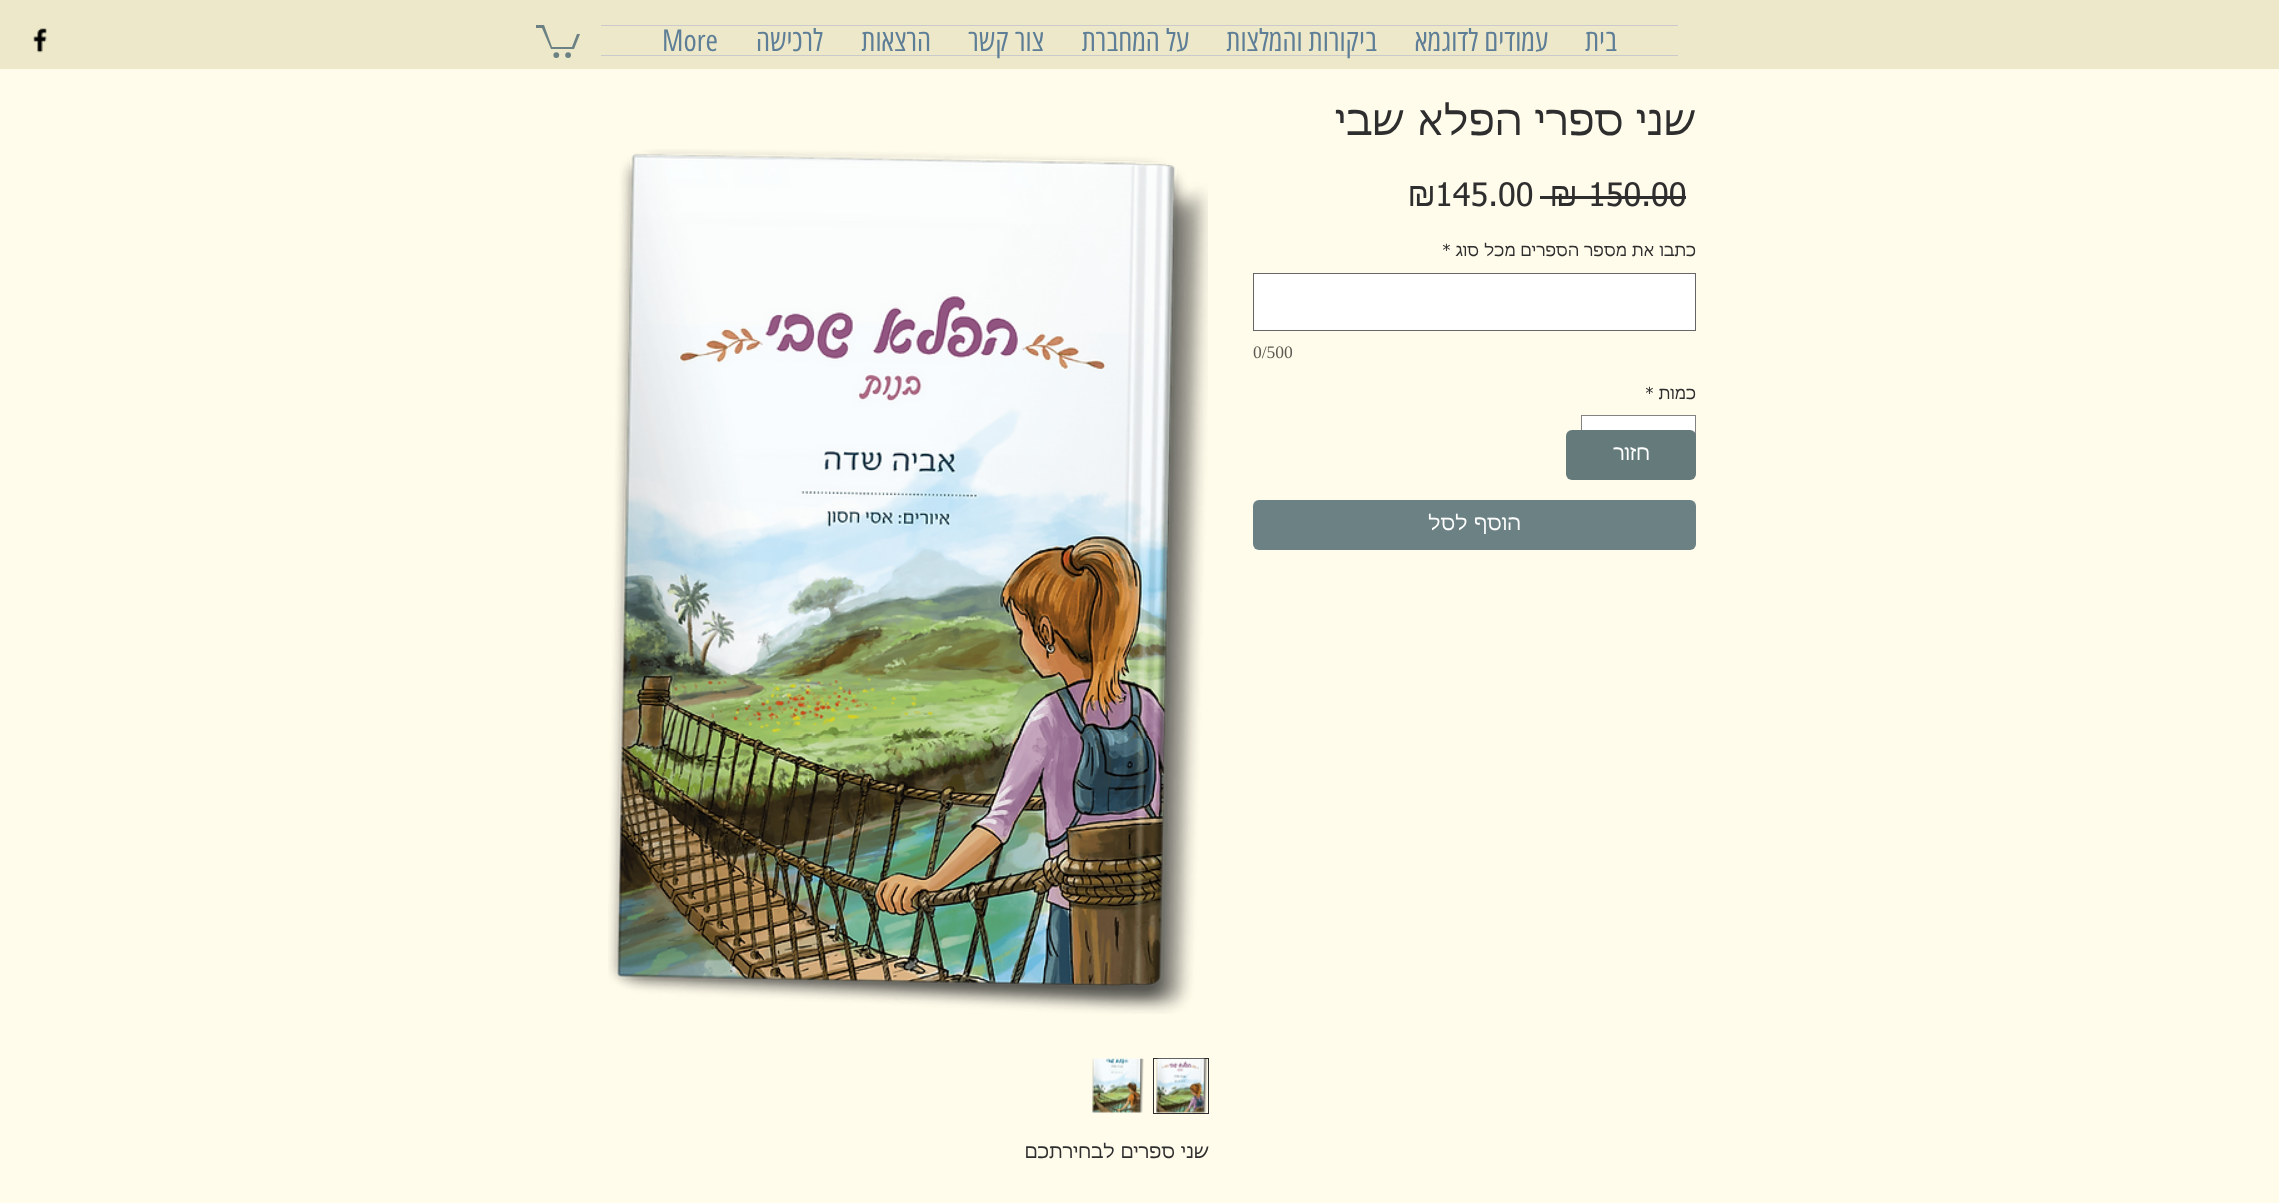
<svg xmlns="http://www.w3.org/2000/svg" width="2279" height="1203">
	<rect width="100%" height="100%" fill="#FFFCEC" />
	<rect x="0" y="0" width="2279" height="69" fill="#EDE8C9" />
	<path d="M580 34L574 49H551L542 28H536V25H544L552 47H572L577 34" fill="#6B8183" />
	<circle cx="568.1" cy="55.1" r="2.9" fill="#6B8183" />
	<circle cx="556.3" cy="55.1" r="2.9" fill="#6B8183" />
	<rect x="601" y="25" width="1077" height="1" fill="#CACACA" />
	<rect x="601" y="55" width="1077" height="1" fill="#CACACA" />
	<g font-family="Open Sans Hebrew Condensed" font-size="30" direction="rtl" fill="#5D7E96">
		<text x="1617" y="51">בית</text>
		<text x="1548" y="51">עמודים לדוגמא</text>
		<text x="1377" y="51">ביקורות והמלצות</text>
		<text x="1189" y="51">על המחברת</text>
		<text x="1044" y="51">צור קשר</text>
		<text x="931" y="51">הרצאות</text>
		<text x="823" y="51">לרכישה</text>
	</g>
	<text x="662" y="51" font-family="Open Sans Hebrew Condensed" font-size="30" fill="#5D7E96">More</text>
	<image x="33" y="28" width="14" height="25" href="assets/img1.png" />
	<text x="1696" y="135" font-family="tahoma" font-size="40" direction="rtl" fill="#2F2E2E">שני ספרי הפלא שבי</text>
	<text x="1588" y="206" font-family="'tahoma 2'" font-size="32.5" fill="#2F2E2E">150.00</text>
	<rect x="1588" y="196" width="98" height="3" fill="#2F2E2E" />
	<text x="1550" y="206" font-family="tahoma" font-size="32.5" fill="#2F2E2E">₪</text>
	<rect x="1540" y="196" width="48" height="3" fill="#2F2E2E" />
	<text x="1435" y="206" font-family="'tahoma 2'" font-size="32.5" fill="#2F2E2E">145.00</text>
	<text x="1408" y="206" font-family="tahoma" font-size="32.5" fill="#2F2E2E">₪</text>
	<text x="1696" y="256" font-family="tahoma" font-size="16.25" direction="rtl" fill="#2F2E2E">כתבו את מספר הספרים מכל סוג</text>
	<text x="1442" y="256" font-family="'tahoma 2'" font-size="16.25" fill="#2F2E2E">*</text>
	<rect x="1253.5" y="273.5" width="442" height="57" fill="#FFFFFF" stroke="#666666" />
	<text x="1253" y="358" font-family="Liberation Serif" font-size="17.5" fill="#5C5A51">0/500</text>
	<text x="1696" y="399" font-family="tahoma" font-size="16.25" direction="rtl" fill="#2F2E2E">כמות</text>
	<text x="1645" y="399" font-family="'tahoma 2'" font-size="16.25" fill="#2F2E2E">*</text>
	<rect x="1582" y="416" width="113" height="17" fill="#FFFFFF" />
	<rect x="1581.5" y="415.5" width="114" height="44" fill="none" stroke="#828282" />
	<rect x="1253" y="500" width="443" height="50" rx="6" fill="#6B8183" />
	<text x="1521" y="530" font-family="tahoma" font-size="20" direction="rtl" fill="#FFFFFF">הוסף לסל</text>
	<image x="608" y="149" width="600" height="865" href="assets/img2.png" />
	<rect x="1153.5" y="1058.5" width="55" height="55" fill="none" stroke="#2F2E2E" />
	<image x="1156" y="1058" width="52" height="55" href="assets/img3.png" />
	<image x="1092" y="1058" width="52" height="55" href="assets/img4.png" />
	<text x="1209" y="1158" font-family="tahoma" font-size="18.75" direction="rtl" fill="#2F2E2E">שני ספרים לבחירתכם</text>
	<rect x="1566" y="430" width="130" height="50" rx="6" fill="#657A7B" />
	<text x="1650" y="460" font-family="tahoma" font-size="20" direction="rtl" fill="#FFFFFF">חזור</text>
</svg>
